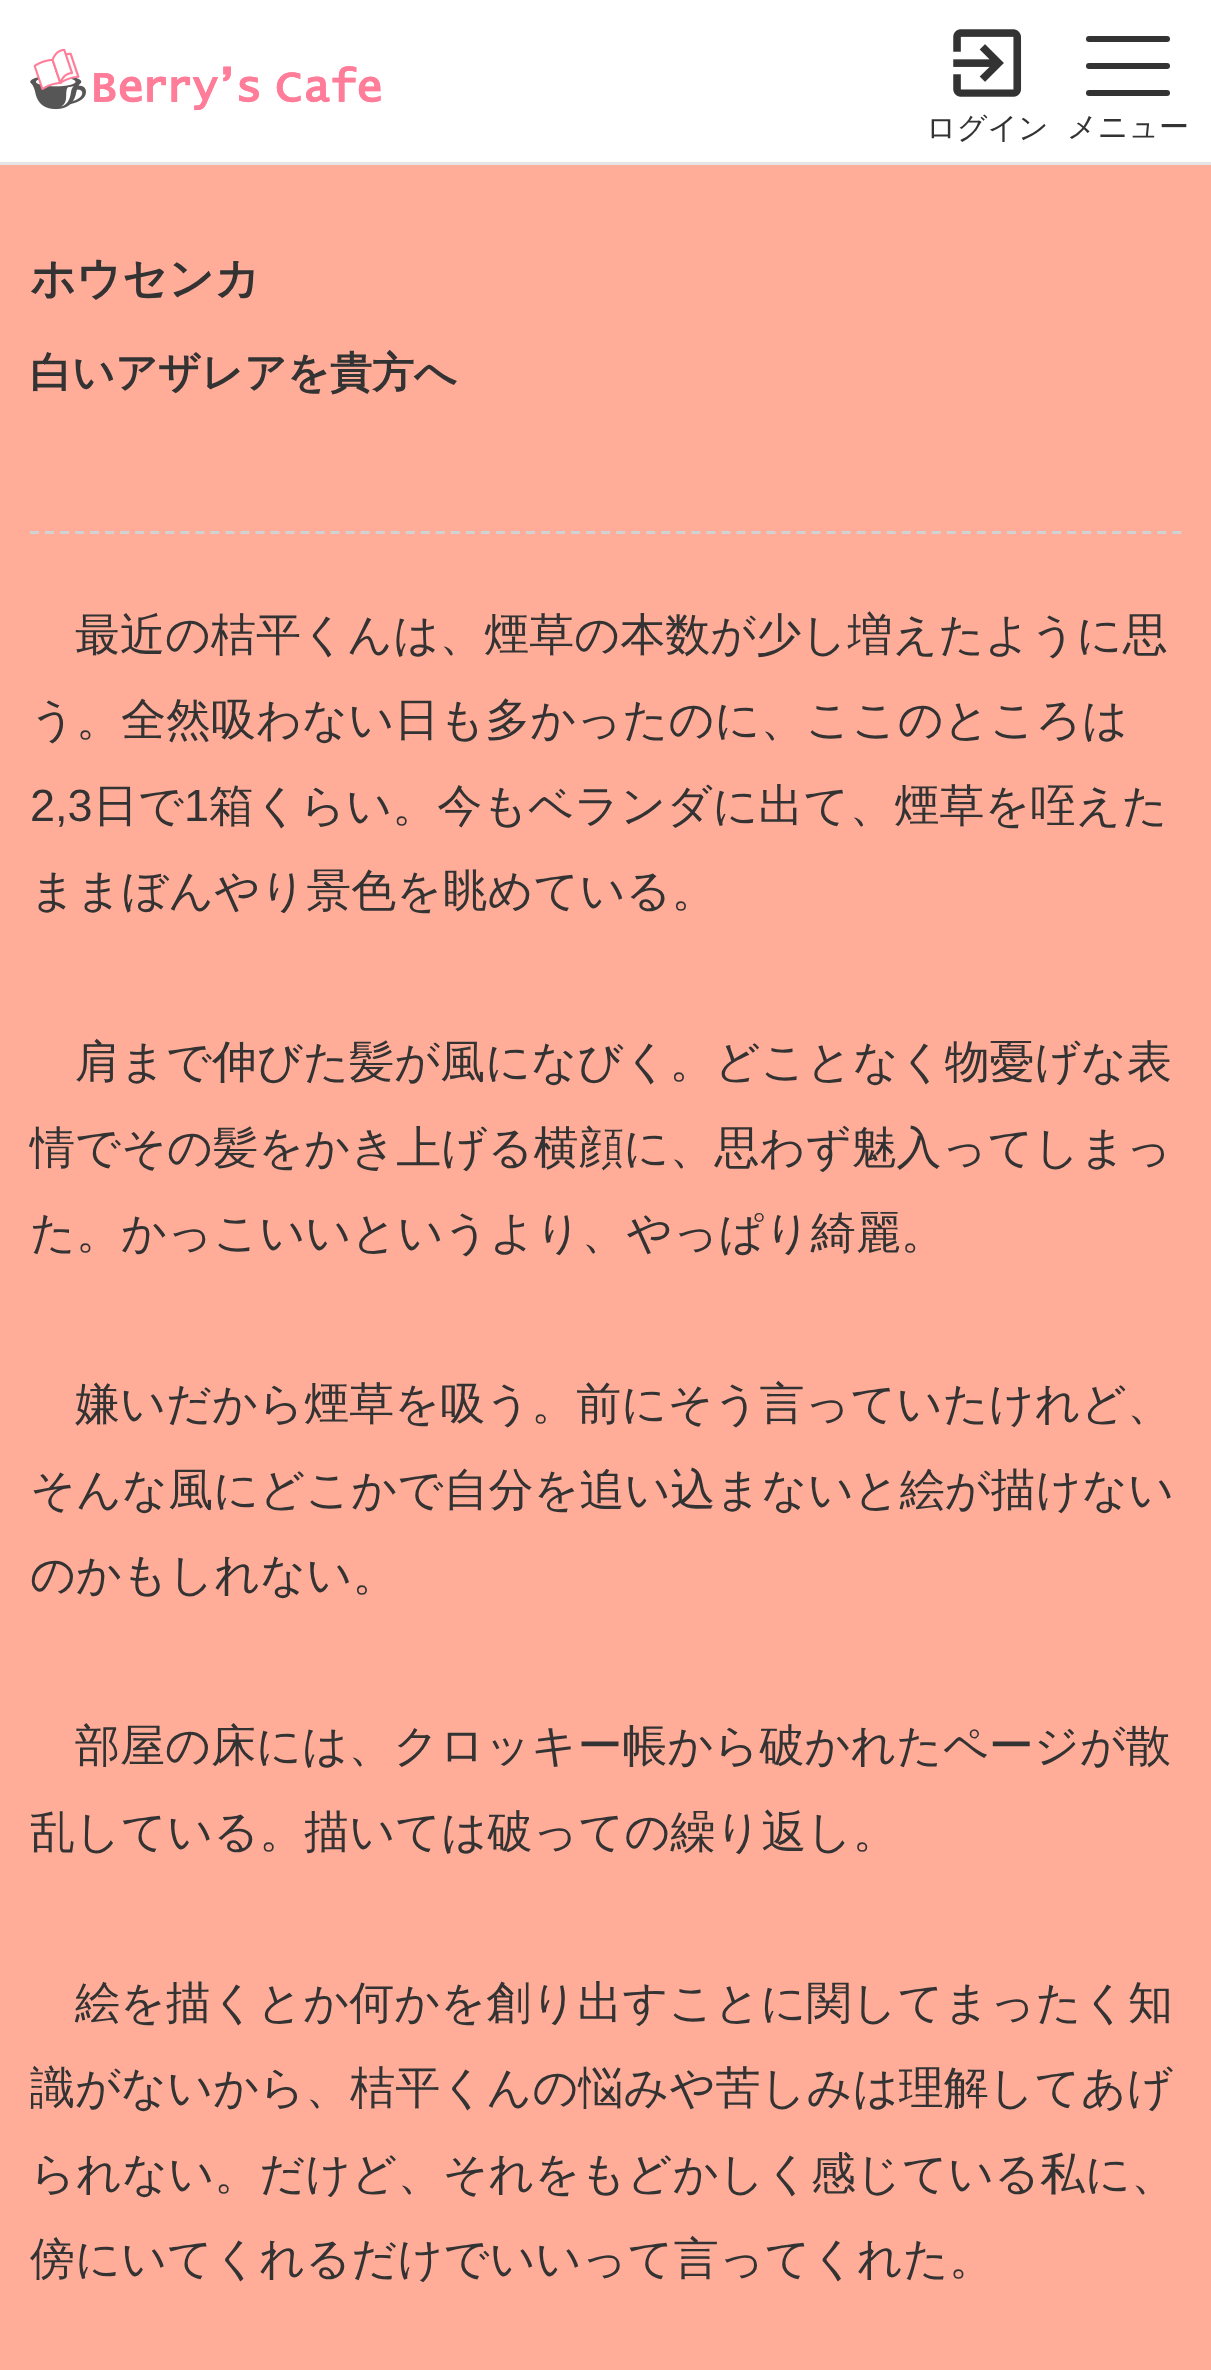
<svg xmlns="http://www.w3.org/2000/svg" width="1211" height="2370">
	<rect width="100%" height="100%" fill="#FFAD99" />
	<rect x="0" y="0" width="1211" height="162" fill="#FFFFFF" />
	<rect x="0" y="162" width="1211" height="3" fill="#E5E5E5" />
	<image x="30" y="48" width="351" height="63" href="assets/img1.png" />
	<image x="953" y="29" width="69" height="68" href="assets/img2.png" />
	<text x="926" y="138" font-family="WenQuanYi Zen Hei" font-size="30" font-weight="500" fill="#333333">ログイン</text>
	<rect x="1086" y="36" width="84" height="6" rx="3" fill="#333333" />
	<rect x="1086" y="63" width="84" height="6" rx="3" fill="#333333" />
	<rect x="1086" y="90" width="84" height="6" rx="3" fill="#333333" />
	<text x="1067" y="137" font-family="WenQuanYi Zen Hei" font-size="30" font-weight="500" fill="#333333">メニュー</text>
	<text x="30" y="294" font-family="WenQuanYi Zen Hei" font-size="45" font-weight="700" fill="#333333">ホウセンカ</text>
	<text x="30" y="387" font-family="WenQuanYi Zen Hei" font-size="42" font-weight="700" fill="#333333">白いアザレアを貴方へ</text>
	<path d="M30 532.5H1182" fill="none" stroke="#D2D2D2" stroke-width="3" stroke-dasharray="9 6.03" />
	<g font-family="WenQuanYi Zen Hei" font-size="45" font-weight="500" fill="#333333">
		<text x="75" y="650">最近の桔平くんは、煙草の本数が少し増えたように思</text>
		<text x="30" y="735">う。全然吸わない日も多かったのに、ここのところは</text>
	</g>
	<text x="30" y="821" font-family="Liberation Sans" font-size="45" fill="#333333">2,3</text>
	<text x="93" y="821" font-family="WenQuanYi Zen Hei" font-size="45" font-weight="500" fill="#333333">日で</text>
	<text x="184" y="821" font-family="Liberation Sans" font-size="45" fill="#333333">1</text>
	<g font-family="WenQuanYi Zen Hei" font-size="45" font-weight="500" fill="#333333">
		<text x="209" y="821">箱くらい。今もベランダに出て、煙草を咥えた</text>
		<text x="30" y="906">ままぼんやり景色を眺めている。</text>
		<text x="75" y="1077">肩まで伸びた髪が風になびく。どことなく物憂げな表</text>
		<text x="30" y="1163">情でその髪をかき上げる横顔に、思わず魅入ってしまっ</text>
		<text x="30" y="1248">た。かっこいいというより、やっぱり綺麗。</text>
		<text x="75" y="1419">嫌いだから煙草を吸う。前にそう言っていたけれど、</text>
		<text x="30" y="1505">そんな風にどこかで自分を追い込まないと絵が描けない</text>
		<text x="30" y="1590">のかもしれない。</text>
		<text x="75" y="1761">部屋の床には、クロッキー帳から破かれたページが散</text>
		<text x="30" y="1847">乱している。描いては破っての繰り返し。</text>
		<text x="75" y="2018">絵を描くとか何かを創り出すことに関してまったく知</text>
		<text x="30" y="2103">識がないから、桔平くんの悩みや苦しみは理解してあげ</text>
		<text x="30" y="2189">られない。だけど、それをもどかしく感じている私に、</text>
		<text x="30" y="2274">傍にいてくれるだけでいいって言ってくれた。</text>
	</g>
</svg>
